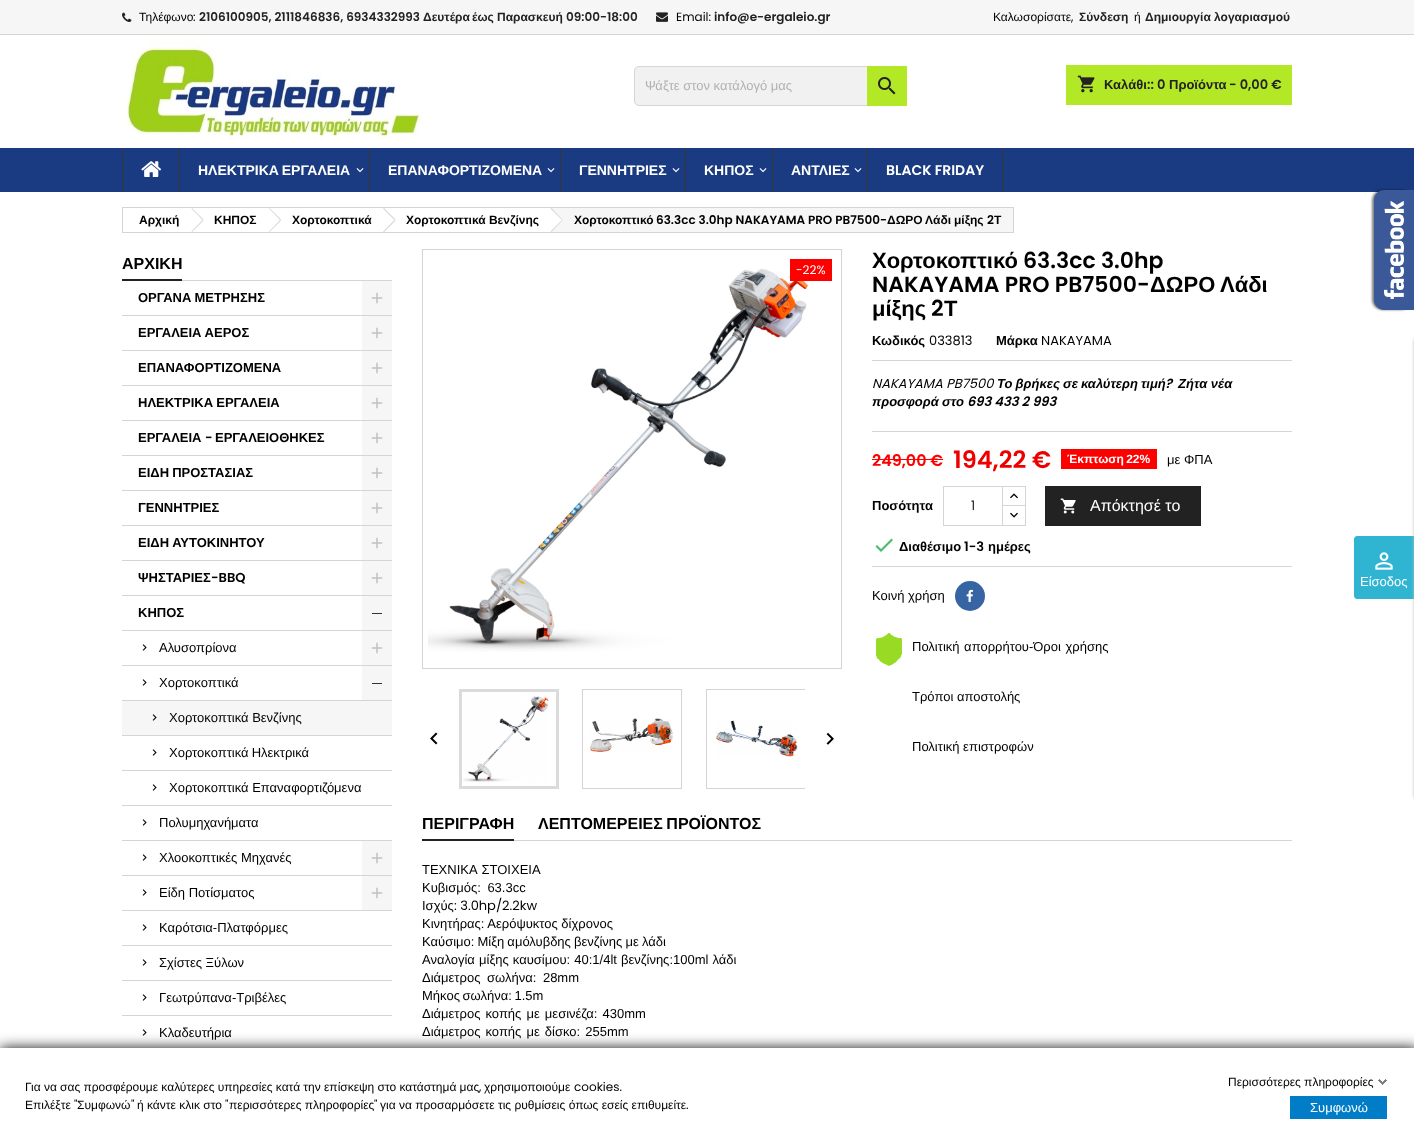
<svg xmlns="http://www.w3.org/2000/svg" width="1414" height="1131">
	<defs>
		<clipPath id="clip1"><rect x="459" y="689" width="346" height="100" /></clipPath>
	</defs>
	<rect width="100%" height="100%" fill="#FFFFFF" />
	<rect x="0" y="0" width="1414" height="34" fill="#F6F6F6" />
	<rect x="0" y="34" width="1414" height="1" fill="#D6D4D4" />
	<image x="122" y="12" width="10" height="10" href="assets/img1.png" />
	<text x="139" y="21" font-family="Liberation Sans" font-size="12" fill="#000000">Τηλέφωνο</text>
	<text x="193" y="21" font-family="Poppins" font-size="12" fill="#000000">:</text>
	<text x="199" y="21" font-family="Poppins" font-size="12" font-weight="600" fill="#222222">2106100905, 2111846836, 6934332993</text>
	<g font-family="Liberation Sans" font-size="12" font-weight="700" fill="#222222">
		<text x="423" y="21">Δευτέρα</text>
		<text x="472" y="21">έως</text>
		<text x="497" y="21">Παρασκευή</text>
	</g>
	<text x="566" y="21" font-family="Poppins" font-size="12" font-weight="600" fill="#222222">09:00-18:00</text>
	<image x="656" y="12" width="12" height="10" href="assets/img2.png" />
	<text x="676" y="21" font-family="Poppins" font-size="12" fill="#000000">Email:</text>
	<text x="714" y="21" font-family="Poppins" font-size="12" font-weight="600" fill="#222222">info@e-ergaleio.gr</text>
	<text x="993" y="21" font-family="Liberation Sans" font-size="12" fill="#000000">Καλωσορίσατε</text>
	<text x="1071" y="21" font-family="Poppins" font-size="12" fill="#000000">,</text>
	<text x="1079" y="21" font-family="Liberation Sans" font-size="12" font-weight="700" fill="#222222">Σύνδεση</text>
	<text x="1134" y="21" font-family="Liberation Sans" font-size="12" fill="#000000">ή</text>
	<text x="1145" y="21" font-family="Liberation Sans" font-size="12" font-weight="700" fill="#222222">Δημιουργία λογαριασμού</text>
	<rect x="0" y="148" width="1414" height="44" fill="#1A3B81" />
	<rect x="122" y="148" width="1" height="44" fill="#363636" />
	<image x="141" y="161" width="21" height="16" href="assets/img3.png" />
	<rect x="179" y="148" width="1" height="44" fill="#363636" />
	<text x="198" y="175" word-spacing="-1" font-family="Liberation Sans" font-size="14" font-weight="700" fill="#FFFFFF">ΗΛΕΚΤΡΙΚΑ ΕΡΓΑΛΕΙΑ</text>
	<image x="356" y="168" width="8" height="5" href="assets/img4.png" />
	<rect x="369" y="148" width="1" height="44" fill="#363636" />
	<text x="388" y="175" font-family="Liberation Sans" font-size="14" font-weight="700" fill="#FFFFFF">ΕΠΑΝΑΦΟΡΤΙΖΟΜΕΝΑ</text>
	<image x="547" y="168" width="8" height="5" href="assets/img4.png" />
	<rect x="560" y="148" width="1" height="44" fill="#363636" />
	<text x="579" y="175" font-family="Liberation Sans" font-size="14" font-weight="700" fill="#FFFFFF">ΓΕΝΝΗΤΡΙΕΣ</text>
	<image x="672" y="168" width="8" height="5" href="assets/img4.png" />
	<rect x="685" y="148" width="1" height="44" fill="#363636" />
	<text x="704" y="175" font-family="Liberation Sans" font-size="14" font-weight="700" fill="#FFFFFF">ΚΗΠΟΣ</text>
	<image x="759" y="168" width="8" height="5" href="assets/img4.png" />
	<rect x="772" y="148" width="1" height="44" fill="#363636" />
	<text x="791" y="175" font-family="Liberation Sans" font-size="14" font-weight="700" fill="#FFFFFF">ΑΝΤΛΙΕΣ</text>
	<image x="854" y="168" width="8" height="5" href="assets/img4.png" />
	<rect x="1002" y="148" width="1" height="44" fill="#363636" />
	<rect x="867" y="148" width="1" height="44" fill="#363636" />
	<text x="886" y="175" font-family="Poppins" font-size="14" font-weight="600" fill="#FFFFFF">BLACK FRIDAY</text>
	<image x="122" y="40" width="300" height="99" href="assets/img5.png" />
	<rect x="634.5" y="66.5" width="272" height="39" rx="4.5" fill="#F1F1F1" stroke="#D6D4D4" />
	<text x="645" y="90" font-family="Liberation Sans" font-size="13" fill="#B1B1B1">Ψάξτε στον κατάλογό μας</text>
	<rect x="867" y="66" width="40" height="40" fill="#B3E827" />
	<image x="878" y="77" width="18" height="18" href="assets/img6.png" />
	<rect x="1066" y="65" width="226" height="40" fill="#B3E827" />
	<image x="1077" y="75" width="18" height="18" href="assets/img7.png" />
	<text x="1104" y="89" font-family="Liberation Sans" font-size="13" font-weight="700" fill="#222222">Καλάθι</text>
	<text x="1147" y="89" font-family="Poppins" font-size="13" font-weight="600" fill="#222222">:: 0</text>
	<text x="1169" y="89" font-family="Liberation Sans" font-size="13" font-weight="700" fill="#222222">Προϊόντα</text>
	<text x="1229" y="89" font-family="Poppins" font-size="13" font-weight="600" fill="#222222">- 0,00 €</text>
	<path d="M1357 536H1414V599H1357C1355.5 599 1354 597.5 1354 596V539C1354 537.5 1355.5 536 1357 536Z" fill="#2FB5D2" />
	<image x="1375" y="552" width="18" height="18" href="assets/img8.png" />
	<text x="1360" y="586" font-family="Liberation Sans" font-size="13" fill="#FFFFFF">Είσοδος</text>
	<rect x="1414" y="338" width="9" height="461" rx="4" fill="#BBBBBB" filter="blur(1.5px)" />
	<rect x="122.5" y="207.5" width="891" height="25" fill="none" stroke="#D6D4D4" />
	<text x="139" y="224" font-family="Liberation Sans" font-size="12" font-weight="700" fill="#000000">Αρχική</text>
	<path d="M192 208L203.5 219.5L202.5 220L191.5 208.5ZM202.5 220L203.5 220.5L192 232L191.5 231.5Z" fill="#D6D4D4" />
	<text x="214" y="224" font-family="Liberation Sans" font-size="12" font-weight="700" fill="#000000">ΚΗΠΟΣ</text>
	<path d="M269.5 208L281 219.5L280 220L269 208.5ZM280 220L281 220.5L269.5 232L269 231.5Z" fill="#D6D4D4" />
	<text x="292" y="224" font-family="Liberation Sans" font-size="12" font-weight="700" fill="#000000">Χορτοκοπτικά</text>
	<path d="M384 208L395.5 219.5L394.5 220L383 208.5ZM394.5 220L395.5 220.5L384 232L383 231.5Z" fill="#D6D4D4" />
	<text x="406" y="224" font-family="Liberation Sans" font-size="12" font-weight="700" fill="#000000">Χορτοκοπτικά Βενζίνης</text>
	<rect x="552" y="208" width="461" height="24" fill="#F6F6F6" />
	<path d="M552 208.5L562 218.5C563 219.5 563 220.5 562 221.5L552 231.5C551.5 232 550 232 549.5 231.5L539.5 221.5C538.5 220.5 538.5 219.5 539.5 218.5L549.5 208.5C550 208 551.5 208 552 208.5Z" fill="#FFFFFF" />
	<path d="M551.5 208L562.5 219.5L562 220L550.5 208.5ZM562 220L562.5 220.5L551.5 232L550.5 231.5Z" fill="#D6D4D4" />
	<text x="574" y="224" font-family="Liberation Sans" font-size="12" font-weight="700" fill="#000000">Χορτοκοπτικό</text>
	<text x="656" y="224" font-family="Poppins" font-size="12" font-weight="600" fill="#000000">63.3cc 3.0hp NAKAYAMA PRO PB7500-</text>
	<g font-family="Liberation Sans" font-size="12" font-weight="700" fill="#000000">
		<text x="887" y="224">ΔΩΡΟ</text>
		<text x="925" y="224">Λάδι</text>
		<text x="954" y="224">μίξης</text>
	</g>
	<text x="987" y="224" font-family="Poppins" font-size="12" font-weight="600" fill="#000000">2</text>
	<text x="994" y="224" font-family="Liberation Sans" font-size="12" font-weight="700" fill="#000000">Τ</text>
	<rect x="182" y="280" width="210" height="1" fill="#D6D4D4" />
	<rect x="122" y="279" width="60" height="2" fill="#222222" />
	<text x="122" y="269" font-family="Liberation Sans" font-size="16" font-weight="700" fill="#000000">ΑΡΧΙΚΗ</text>
	<rect x="122" y="315" width="270" height="1" fill="#D6D4D4" />
	<text x="138" y="302" word-spacing="-0.5" font-family="Liberation Sans" font-size="13" font-weight="700" fill="#000000">ΟΡΓΑΝΑ ΜΕΤΡΗΣΗΣ</text>
	<rect x="362" y="281" width="30" height="34" fill="#F6F6F6" />
	<image x="371" y="292" width="12" height="12" href="assets/img9.png" />
	<rect x="122" y="350" width="270" height="1" fill="#D6D4D4" />
	<text x="138" y="337" font-family="Liberation Sans" font-size="13" font-weight="700" fill="#000000">ΕΡΓΑΛΕΙΑ ΑΕΡΟΣ</text>
	<rect x="362" y="316" width="30" height="34" fill="#F6F6F6" />
	<image x="371" y="327" width="12" height="12" href="assets/img9.png" />
	<rect x="122" y="385" width="270" height="1" fill="#D6D4D4" />
	<text x="138" y="372" font-family="Liberation Sans" font-size="13" font-weight="700" fill="#000000">ΕΠΑΝΑΦΟΡΤΙΖΟΜΕΝΑ</text>
	<rect x="362" y="351" width="30" height="34" fill="#F6F6F6" />
	<image x="371" y="362" width="12" height="12" href="assets/img9.png" />
	<rect x="122" y="420" width="270" height="1" fill="#D6D4D4" />
	<text x="138" y="407" word-spacing="-0.5" font-family="Liberation Sans" font-size="13" font-weight="700" fill="#000000">ΗΛΕΚΤΡΙΚΑ ΕΡΓΑΛΕΙΑ</text>
	<rect x="362" y="386" width="30" height="34" fill="#F6F6F6" />
	<image x="371" y="397" width="12" height="12" href="assets/img9.png" />
	<rect x="122" y="455" width="270" height="1" fill="#D6D4D4" />
	<text x="138" y="442" font-family="Liberation Sans" font-size="13" font-weight="700" fill="#000000">ΕΡΓΑΛΕΙΑ</text>
	<text x="205" y="442" font-family="Poppins" font-size="13" font-weight="600" fill="#000000">-</text>
	<text x="215" y="442" font-family="Liberation Sans" font-size="13" font-weight="700" fill="#000000">ΕΡΓΑΛΕΙΟΘΗΚΕΣ</text>
	<rect x="362" y="421" width="30" height="34" fill="#F6F6F6" />
	<image x="371" y="432" width="12" height="12" href="assets/img9.png" />
	<rect x="122" y="490" width="270" height="1" fill="#D6D4D4" />
	<text x="138" y="477" word-spacing="-0.5" font-family="Liberation Sans" font-size="13" font-weight="700" fill="#000000">ΕΙΔΗ ΠΡΟΣΤΑΣΙΑΣ</text>
	<rect x="362" y="456" width="30" height="34" fill="#F6F6F6" />
	<image x="371" y="467" width="12" height="12" href="assets/img9.png" />
	<rect x="122" y="525" width="270" height="1" fill="#D6D4D4" />
	<text x="138" y="512" font-family="Liberation Sans" font-size="13" font-weight="700" fill="#000000">ΓΕΝΝΗΤΡΙΕΣ</text>
	<rect x="362" y="491" width="30" height="34" fill="#F6F6F6" />
	<image x="371" y="502" width="12" height="12" href="assets/img9.png" />
	<rect x="122" y="560" width="270" height="1" fill="#D6D4D4" />
	<text x="138" y="547" font-family="Liberation Sans" font-size="13" font-weight="700" fill="#000000">ΕΙΔΗ ΑΥΤΟΚΙΝΗΤΟΥ</text>
	<rect x="362" y="526" width="30" height="34" fill="#F6F6F6" />
	<image x="371" y="537" width="12" height="12" href="assets/img9.png" />
	<rect x="122" y="595" width="270" height="1" fill="#D6D4D4" />
	<text x="138" y="582" font-family="Liberation Sans" font-size="13" font-weight="700" fill="#000000">ΨΗΣΤΑΡΙΕΣ</text>
	<text x="211" y="582" font-family="Poppins" font-size="13" font-weight="600" fill="#000000">-BBQ</text>
	<rect x="362" y="561" width="30" height="34" fill="#F6F6F6" />
	<image x="371" y="572" width="12" height="12" href="assets/img9.png" />
	<rect x="122" y="630" width="270" height="1" fill="#D6D4D4" />
	<text x="138" y="617" font-family="Liberation Sans" font-size="13" font-weight="700" fill="#000000">ΚΗΠΟΣ</text>
	<rect x="362" y="596" width="30" height="34" fill="#F6F6F6" />
	<rect x="372" y="613" width="10" height="1" fill="#333333" />
	<rect x="122" y="665" width="270" height="1" fill="#D6D4D4" />
	<image x="142" y="644" width="5" height="7" href="assets/img10.png" />
	<text x="159" y="652" font-family="Liberation Sans" font-size="13" fill="#000000">Αλυσοπρίονα</text>
	<rect x="362" y="631" width="30" height="34" fill="#F6F6F6" />
	<image x="371" y="642" width="12" height="12" href="assets/img9.png" />
	<rect x="122" y="700" width="270" height="1" fill="#D6D4D4" />
	<image x="142" y="679" width="5" height="7" href="assets/img10.png" />
	<text x="159" y="687" font-family="Liberation Sans" font-size="13" fill="#000000">Χορτοκοπτικά</text>
	<rect x="362" y="666" width="30" height="34" fill="#F6F6F6" />
	<rect x="372" y="683" width="10" height="1" fill="#333333" />
	<rect x="122" y="701" width="270" height="34" fill="#F6F6F6" />
	<rect x="122" y="735" width="270" height="1" fill="#D6D4D4" />
	<image x="152" y="714" width="5" height="7" href="assets/img11.png" />
	<text x="169" y="722" font-family="Liberation Sans" font-size="13" fill="#000000">Χορτοκοπτικά Βενζίνης</text>
	<rect x="122" y="770" width="270" height="1" fill="#D6D4D4" />
	<image x="152" y="749" width="5" height="7" href="assets/img10.png" />
	<text x="169" y="757" word-spacing="-0.5" font-family="Liberation Sans" font-size="13" fill="#000000">Χορτοκοπτικά Hλεκτρικά</text>
	<rect x="122" y="805" width="270" height="1" fill="#D6D4D4" />
	<image x="152" y="784" width="5" height="7" href="assets/img10.png" />
	<text x="169" y="792" font-family="Liberation Sans" font-size="13" fill="#000000">Χορτοκοπτικά Επαναφορτιζόμενα</text>
	<rect x="122" y="840" width="270" height="1" fill="#D6D4D4" />
	<image x="142" y="819" width="5" height="7" href="assets/img10.png" />
	<text x="159" y="827" font-family="Liberation Sans" font-size="13" fill="#000000">Πολυμηχανήματα</text>
	<rect x="122" y="875" width="270" height="1" fill="#D6D4D4" />
	<image x="142" y="854" width="5" height="7" href="assets/img10.png" />
	<text x="159" y="862" font-family="Liberation Sans" font-size="13" fill="#000000">Χλοοκοπτικές Μηχανές</text>
	<rect x="362" y="841" width="30" height="34" fill="#F6F6F6" />
	<image x="371" y="852" width="12" height="12" href="assets/img9.png" />
	<rect x="122" y="910" width="270" height="1" fill="#D6D4D4" />
	<image x="142" y="889" width="5" height="7" href="assets/img10.png" />
	<text x="159" y="897" font-family="Liberation Sans" font-size="13" fill="#000000">Είδη Ποτίσματος</text>
	<rect x="362" y="876" width="30" height="34" fill="#F6F6F6" />
	<image x="371" y="887" width="12" height="12" href="assets/img9.png" />
	<rect x="122" y="945" width="270" height="1" fill="#D6D4D4" />
	<image x="142" y="924" width="5" height="7" href="assets/img10.png" />
	<text x="159" y="932" font-family="Liberation Sans" font-size="13" fill="#000000">Καρότσια-Πλατφόρμες</text>
	<rect x="122" y="980" width="270" height="1" fill="#D6D4D4" />
	<image x="142" y="959" width="5" height="7" href="assets/img10.png" />
	<text x="159" y="967" font-family="Liberation Sans" font-size="13" fill="#000000">Σχίστες Ξύλων</text>
	<rect x="122" y="1015" width="270" height="1" fill="#D6D4D4" />
	<image x="142" y="994" width="5" height="7" href="assets/img10.png" />
	<text x="159" y="1002" font-family="Liberation Sans" font-size="13" fill="#000000">Γεωτρύπανα-Τριβέλες</text>
	<image x="142" y="1029" width="5" height="7" href="assets/img10.png" />
	<text x="159" y="1037" font-family="Liberation Sans" font-size="13" fill="#000000">Κλαδευτήρια</text>
	<rect x="422.5" y="249.5" width="419" height="419" fill="none" stroke="#D6D4D4" />
	<image x="428" y="268" width="380" height="384" href="assets/img12.png" />
	<rect x="460.5" y="690.5" width="97" height="97" fill="none" stroke="#DBDBDB" stroke-width="3" />
	<rect x="582.5" y="689.5" width="99" height="99" fill="none" stroke="#D6D4D4" />
	<g clip-path="url(#clip1)">
		<rect x="706.5" y="689.5" width="99" height="99" fill="none" stroke="#D6D4D4" />
	</g>
	<image x="463" y="696" width="86" height="86" href="assets/img13.png" />
	<image x="590" y="718" width="83" height="34" href="assets/img14.png" />
	<image x="716" y="720" width="82" height="37" href="assets/img15.png" />
	<rect x="790" y="259" width="42" height="22" fill="#FF0000" />
	<text x="796" y="274" font-family="Poppins" font-size="12" fill="#FFFFFF">-22%</text>
	<image x="430" y="732" width="8" height="13" href="assets/img16.png" />
	<image x="826" y="732" width="8" height="13" href="assets/img17.png" />
	<text x="872" y="268" font-family="Liberation Sans" font-size="22" font-weight="700" fill="#000000">Χορτοκοπτικό</text>
	<g font-family="Poppins" font-size="22" font-weight="600" fill="#000000">
		<text x="1023" y="268">63.3cc 3.0hp</text>
		<text x="872" y="292">NAKAYAMA PRO PB7500-</text>
	</g>
	<g font-family="Liberation Sans" font-size="22" font-weight="700" fill="#000000">
		<text x="1150" y="292">ΔΩΡΟ</text>
		<text x="1220" y="292">Λάδι</text>
		<text x="872" y="316">μίξης</text>
	</g>
	<text x="931" y="316" font-family="Poppins" font-size="22" font-weight="600" fill="#000000">2</text>
	<text x="944" y="316" font-family="Liberation Sans" font-size="22" font-weight="700" fill="#000000">Τ</text>
	<text x="872" y="345" font-family="Liberation Sans" font-size="13" font-weight="700" fill="#000000">Κωδικός</text>
	<text x="929" y="345" font-family="Poppins" font-size="13" fill="#000000">033813</text>
	<text x="996" y="345" font-family="Liberation Sans" font-size="13" font-weight="700" fill="#000000">Μάρκα</text>
	<text x="1041" y="345" font-family="Poppins" font-size="13" fill="#000000">NAKAYAMA</text>
	<rect x="872" y="360" width="420" height="1" fill="#D6D4D4" />
	<text x="872" y="388" font-family="Poppins" font-size="13" font-style="italic" fill="#000000">NAKAYAMA PB7500</text>
	<g font-family="Liberation Sans" font-size="13" font-weight="700" font-style="italic" fill="#000000">
		<text x="997" y="388" word-spacing="-0.5">Το βρήκες σε καλύτερη</text>
		<text x="1141" y="388">τιμή</text>
	</g>
	<text x="1165" y="388" font-family="Poppins" font-size="13" font-weight="600" font-style="italic" fill="#000000">?</text>
	<g font-family="Liberation Sans" font-size="13" font-weight="700" font-style="italic" fill="#000000">
		<text x="1178" y="388">Ζήτα νέα</text>
		<text x="872" y="406">προσφορά</text>
		<text x="942" y="406">στο</text>
	</g>
	<text x="967" y="406" font-family="Poppins" font-size="13" font-weight="600" font-style="italic" fill="#000000">693 433 2 993</text>
	<rect x="872" y="431" width="420" height="1" fill="#D6D4D4" />
	<text x="872" y="466" font-family="Poppins" font-size="16" font-weight="600" fill="#FF0000">249,00 €</text>
	<rect x="872" y="459" width="71" height="1" fill="#FF0000" />
	<text x="953" y="468" font-family="Poppins" font-size="24" font-weight="600" fill="#EE0000">194,22 €</text>
	<rect x="1061" y="449" width="96" height="20" fill="#FF0000" />
	<text x="1067" y="463" word-spacing="-1" font-family="Liberation Sans" font-size="12" font-weight="700" fill="#FFFFFF">Έκπτωση 22%</text>
	<text x="1167" y="464" font-family="Liberation Sans" font-size="13" fill="#000000">με ΦΠΑ</text>
	<text x="872" y="510" font-family="Liberation Sans" font-size="13" font-weight="700" fill="#000000">Ποσότητα</text>
	<rect x="1002.5" y="486.5" width="23" height="20" fill="none" stroke="#D6D4D4" />
	<rect x="1003" y="506" width="22" height="1" fill="#FFFFFF" />
	<rect x="1002.5" y="505.5" width="23" height="20" fill="none" stroke="#D6D4D4" />
	<rect x="943.5" y="486.5" width="59" height="39" fill="none" stroke="#D6D4D4" />
	<text x="971" y="510" font-family="Poppins" font-size="13" fill="#222222">1</text>
	<image x="1010" y="493" width="8" height="6" href="assets/img18.png" />
	<image x="1010" y="512" width="8" height="6" href="assets/img19.png" />
	<rect x="1045" y="486" width="156" height="40" fill="#222222" />
	<image x="1060" y="498" width="16" height="16" href="assets/img20.png" />
	<text x="1090" y="511" font-family="Liberation Sans" font-size="16" fill="#FFFFFF">Απόκτησέ το</text>
	<path d="M881 549L891.5 538.5L893 540L881 552L875.5 546.5L877 545Z" fill="#4CBB6C" />
	<text x="899" y="551" font-family="Liberation Sans" font-size="13" font-weight="700" fill="#000000">Διαθέσιμο</text>
	<text x="964" y="551" font-family="Poppins" font-size="13" font-weight="600" fill="#000000">1-3</text>
	<text x="988" y="551" font-family="Liberation Sans" font-size="13" font-weight="700" fill="#000000">ημέρες</text>
	<rect x="872" y="566" width="420" height="1" fill="#D6D4D4" />
	<text x="872" y="600" font-family="Liberation Sans" font-size="13" fill="#000000">Κοινή χρήση</text>
	<circle cx="970" cy="596" r="15" fill="#3765A3" />
	<image x="966" y="589" width="7" height="13" href="assets/img21.png" />
	<image x="876" y="633" width="26" height="33" href="assets/img22.png" />
	<g font-family="Liberation Sans" font-size="13" fill="#000000">
		<text x="912" y="651" word-spacing="1">Πολιτική απορρήτου-Όροι χρήσης</text>
		<text x="912" y="701">Τρόποι αποστολής</text>
		<text x="912" y="751">Πολιτική επιστροφών</text>
	</g>
	<rect x="514" y="840" width="778" height="1" fill="#D6D4D4" />
	<rect x="422" y="839" width="92" height="2" fill="#222222" />
	<g font-family="Liberation Sans" font-size="16" font-weight="700" fill="#000000">
		<text x="422" y="829">ΠΕΡΙΓΡΑΦΗ</text>
		<text x="538" y="829" word-spacing="-1">ΛΕΠΤΟΜΕΡΕΙΕΣ ΠΡΟΪΟΝΤΟΣ</text>
	</g>
	<g font-family="Liberation Sans" font-size="13" fill="#000000">
		<text x="422" y="874" word-spacing="1">ΤΕΧΝΙΚΑ ΣΤΟΙΧΕΙΑ</text>
		<text x="422" y="892" word-spacing="3">Κυβισμός: 63.3cc</text>
		<text x="422" y="910">Ισχύς</text>
	</g>
	<text x="454" y="910" font-family="Poppins" font-size="13" fill="#000000">: 3.0hp/2.2kw</text>
	<g font-family="Liberation Sans" font-size="13" fill="#000000">
		<text x="422" y="928">Κινητήρας: Αερόψυκτος δίχρονος</text>
		<text x="422" y="946" word-spacing="-0.5">Καύσιμο: Μίξη αμόλυβδης βενζίνης με λάδι</text>
		<text x="422" y="964" word-spacing="0.5">Αναλογία μίξης καυσίμου: 40:1/4lt βενζίνης:100ml λάδι</text>
		<text x="422" y="982" word-spacing="3">Διάμετρος σωλήνα: 28mm</text>
		<text x="422" y="1000" word-spacing="-1">Μήκος σωλήνα: 1.5m</text>
		<text x="422" y="1018" word-spacing="1.5">Διάμετρος κοπής με μεσινέζα: 430mm</text>
		<text x="422" y="1036" word-spacing="1.5">Διάμετρος κοπής με δίσκο: 255mm</text>
	</g>
	<rect x="1372" y="190" width="40" height="120" rx="10" fill="#000000" fill-opacity="0.5" filter="blur(1px)" />
	<path d="M1384 190H1414V310H1384C1378.5 310 1374 305.5 1374 300V200C1374 194.5 1378.5 190 1384 190Z" fill="#3B5998" />
	<image x="1384" y="201" width="20" height="98" href="assets/img23.png" />
	<rect x="0" y="1048" width="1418" height="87" fill="#121212" filter="blur(7px)" />
	<rect x="0" y="1048" width="1414" height="83" fill="#FFFFFF" />
	<text x="25" y="1091" word-spacing="-0.1" font-family="Liberation Sans" font-size="12" fill="#000000">Για να σας προσφέρουμε καλύτερες υπηρεσίες κατά την επίσκεψη στο κατάστημά μας</text>
	<text x="479" y="1091" font-family="Poppins" font-size="12" fill="#000000">,</text>
	<text x="484" y="1091" font-family="Liberation Sans" font-size="12" fill="#000000">χρησιμοποιούμε</text>
	<text x="574" y="1091" font-family="Poppins" font-size="12" fill="#000000">cookies.</text>
	<text x="25" y="1109" font-family="Liberation Sans" font-size="12" fill="#000000">Επιλέξτε</text>
	<text x="74" y="1109" font-family="Poppins" font-size="12" fill="#000000">"</text>
	<text x="77" y="1109" font-family="Liberation Sans" font-size="12" fill="#000000">Συμφωνώ</text>
	<text x="131" y="1109" font-family="Poppins" font-size="12" fill="#000000">"</text>
	<text x="137" y="1109" font-family="Liberation Sans" font-size="12" fill="#000000">ή κάντε κλικ στο</text>
	<text x="225" y="1109" font-family="Poppins" font-size="12" fill="#000000">"</text>
	<text x="229" y="1109" font-family="Liberation Sans" font-size="12" fill="#000000">περισσότερες πληροφορίες</text>
	<text x="374" y="1109" font-family="Poppins" font-size="12" fill="#000000">"</text>
	<text x="380" y="1109" font-family="Liberation Sans" font-size="12" fill="#000000">για να προσαρμόσετε τις ρυθμίσεις όπως εσείς επιθυμείτε</text>
	<text x="686" y="1109" font-family="Poppins" font-size="12" fill="#000000">.</text>
	<text x="1228" y="1086" word-spacing="-0.1" font-family="Liberation Sans" font-size="12" fill="#000000">Περισσότερες πληροφορίες</text>
	<image x="1378" y="1079" width="9" height="6" href="assets/img24.png" />
	<rect x="1290" y="1096" width="97" height="23" fill="#007DC6" />
	<text x="1310" y="1112" font-family="Liberation Sans" font-size="13" fill="#FFFFFF">Συμφωνώ</text>
</svg>
